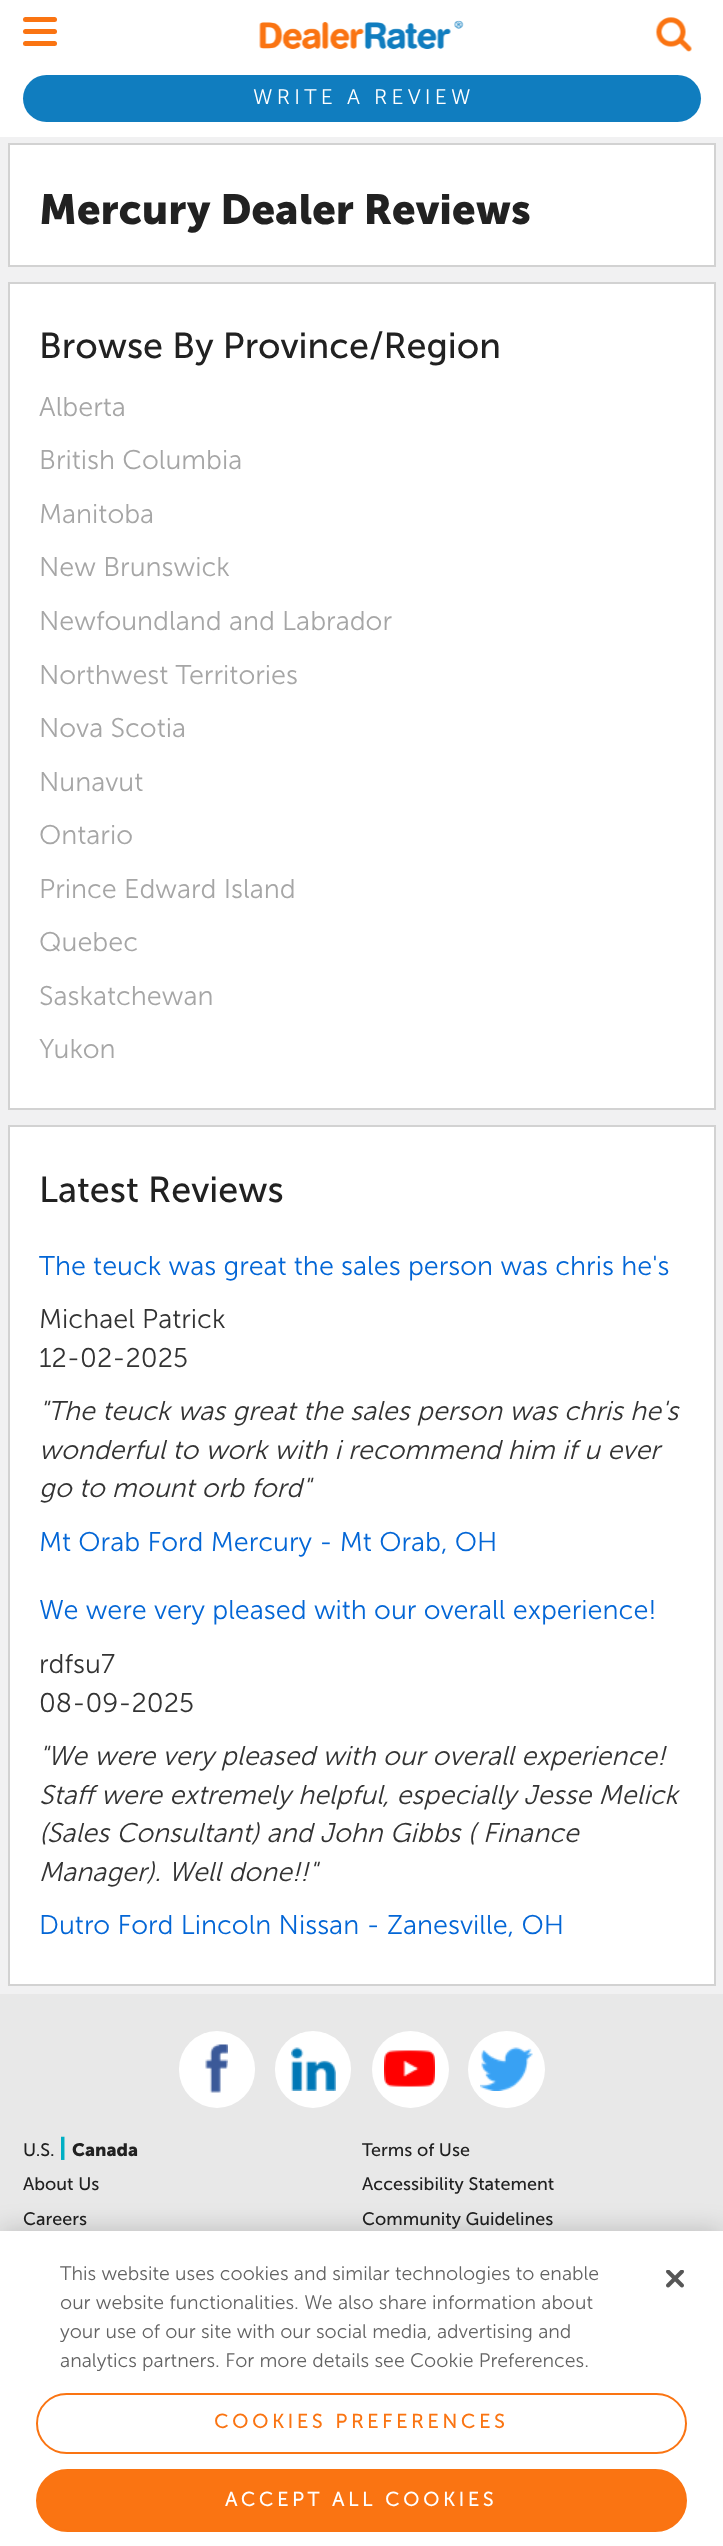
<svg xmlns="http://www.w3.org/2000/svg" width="723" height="2546">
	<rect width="100%" height="100%" fill="#F1F1F2" />
	<rect x="0" y="0" width="723" height="137" fill="#FFFFFF" />
	<rect x="23" y="17" width="34" height="5" rx="2.5" fill="#FA7412" />
	<rect x="23" y="29" width="34" height="5" rx="2.5" fill="#FA7412" />
	<rect x="23" y="41" width="34" height="5" rx="2.5" fill="#FA7412" />
	<image x="259" y="20" width="205" height="29" href="assets/img1.png" />
	<image x="655" y="17" width="37" height="35" href="assets/img2.png" />
	<rect x="23" y="75" width="678" height="47" rx="23.5" fill="#107DBF" />
	<text x="253" y="104" font-family="'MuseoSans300'" font-size="21" letter-spacing="4.25" fill="#FFFFFF">WRITE A REVIEW</text>
	<rect x="9" y="144" width="706" height="122" fill="#FFFFFF" stroke="#D2D2D2" stroke-width="2" />
	<text x="39" y="224" font-family="'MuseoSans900'" font-size="42" fill="#212121">Mercury Dealer Reviews</text>
	<rect x="9" y="283" width="706" height="826" fill="#FFFFFF" stroke="#D2D2D2" stroke-width="2" />
	<text x="39" y="358" font-family="'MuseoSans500'" font-size="36" fill="#212121">Browse By Province/Region</text>
	<g font-family="'MuseoSans300'" font-size="27" fill="#A6A6A6">
		<text x="39" y="416">Alberta</text>
		<text x="39" y="469">British Columbia</text>
		<text x="39" y="523">Manitoba</text>
		<text x="39" y="576">New Brunswick</text>
		<text x="39" y="630">Newfoundland and Labrador</text>
		<text x="39" y="684">Northwest Territories</text>
		<text x="39" y="737">Nova Scotia</text>
		<text x="39" y="791">Nunavut</text>
		<text x="39" y="844">Ontario</text>
		<text x="39" y="898">Prince Edward Island</text>
		<text x="39" y="951">Quebec</text>
		<text x="39" y="1005">Saskatchewan</text>
		<text x="39" y="1058">Yukon</text>
	</g>
	<rect x="9" y="1126" width="706" height="859" fill="#FFFFFF" stroke="#D2D2D2" stroke-width="2" />
	<text x="39" y="1202" font-family="'MuseoSans500'" font-size="36" fill="#212121">Latest Reviews</text>
	<text x="39" y="1275" font-family="'MuseoSans300'" font-size="27" fill="#0366D6">The teuck was great the sales person was chris he's</text>
	<g font-family="'MuseoSans300'" font-size="27" fill="#333333">
		<text x="39" y="1328">Michael Patrick</text>
		<text x="39" y="1367">12-02-2025</text>
	</g>
	<g font-family="'MuseoSans300'" font-size="27" font-style="italic" fill="#333333">
		<text x="39" y="1420">"The teuck was great the sales person was chris he's</text>
		<text x="39" y="1459">wonderful to work with i recommend him if u ever</text>
		<text x="39" y="1497">go to mount orb ford"</text>
	</g>
	<g font-family="'MuseoSans300'" font-size="27" fill="#0366D6">
		<text x="39" y="1551">Mt Orab Ford Mercury - Mt Orab, OH</text>
		<text x="39" y="1619">We were very pleased with our overall experience!</text>
	</g>
	<g font-family="'MuseoSans300'" font-size="27" fill="#333333">
		<text x="39" y="1673">rdfsu7</text>
		<text x="39" y="1712">08-09-2025</text>
	</g>
	<g font-family="'MuseoSans300'" font-size="27" font-style="italic" fill="#333333">
		<text x="39" y="1765">"We were very pleased with our overall experience!</text>
		<text x="39" y="1804">Staff were extremely helpful, especially Jesse Melick</text>
		<text x="39" y="1842">(Sales Consultant) and John Gibbs ( Finance</text>
		<text x="39" y="1881">Manager). Well done!!"</text>
	</g>
	<text x="39" y="1934" font-family="'MuseoSans300'" font-size="27" fill="#0366D6">Dutro Ford Lincoln Nissan - Zanesville, OH</text>
	<rect x="0" y="1994" width="723" height="237" fill="#E8E8E8" />
	<rect x="179" y="2031" width="76" height="77" rx="38" fill="#FFFFFF" />
	<image x="205" y="2044" width="23" height="49" href="assets/img3.png" />
	<rect x="275" y="2031" width="76" height="77" rx="38" fill="#FFFFFF" />
	<image x="291" y="2047" width="45" height="44" href="assets/img4.png" />
	<circle cx="410.5" cy="2069.5" r="38.5" fill="#FFFFFF" />
	<image x="384" y="2050" width="51" height="37" href="assets/img5.png" />
	<circle cx="506.5" cy="2069.5" r="38.5" fill="#FFFFFF" />
	<image x="480" y="2047" width="53" height="44" href="assets/img6.png" />
	<text x="23" y="2156" font-family="'MuseoSans500'" font-size="18" fill="#212121">U.S.</text>
	<text x="59" y="2156" font-family="'MuseoSans900'" font-size="24" fill="#00AFC4">|</text>
	<text x="72" y="2156" font-family="'MuseoSans900'" font-size="18" fill="#212121">Canada</text>
	<g font-family="'MuseoSans500'" font-size="18" fill="#212121">
		<text x="23" y="2190">About Us</text>
		<text x="23" y="2225">Careers</text>
		<text x="362" y="2156">Terms of Use</text>
		<text x="362" y="2190">Accessibility Statement</text>
		<text x="362" y="2225">Community Guidelines</text>
	</g>
	<rect x="0" y="2231" width="723" height="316" fill="#000000" fill-opacity="0.2" filter="blur(13.5px)" />
	<rect x="0" y="2231" width="723" height="315" fill="#FFFFFF" />
	<g font-family="'MuseoSans300'" font-size="19.5" fill="#636363">
		<text x="60" y="2280">This website uses cookies and similar technologies to enable</text>
		<text x="60" y="2309">our website functionalities. We also share information about</text>
		<text x="60" y="2338">your use of our site with our social media, advertising and</text>
		<text x="60" y="2367">analytics partners. For more details see Cookie Preferences.</text>
	</g>
	<rect x="37" y="2394" width="649" height="59" rx="29.5" fill="none" stroke="#FA7412" stroke-width="2" />
	<text x="214" y="2428" font-family="'MuseoSans300'" font-size="19.5" font-weight="700" letter-spacing="3.9" fill="#FA7412">COOKIES PREFERENCES</text>
	<rect x="37" y="2470" width="649" height="61" rx="30.5" fill="#FA7412" stroke="#FA7412" stroke-width="2" />
	<text x="225" y="2506" font-family="'MuseoSans300'" font-size="19.5" font-weight="700" letter-spacing="3.9" fill="#FFFFFF">ACCEPT ALL COOKIES</text>
	<image x="666" y="2270" width="18" height="18" href="assets/img7.png" />
</svg>
